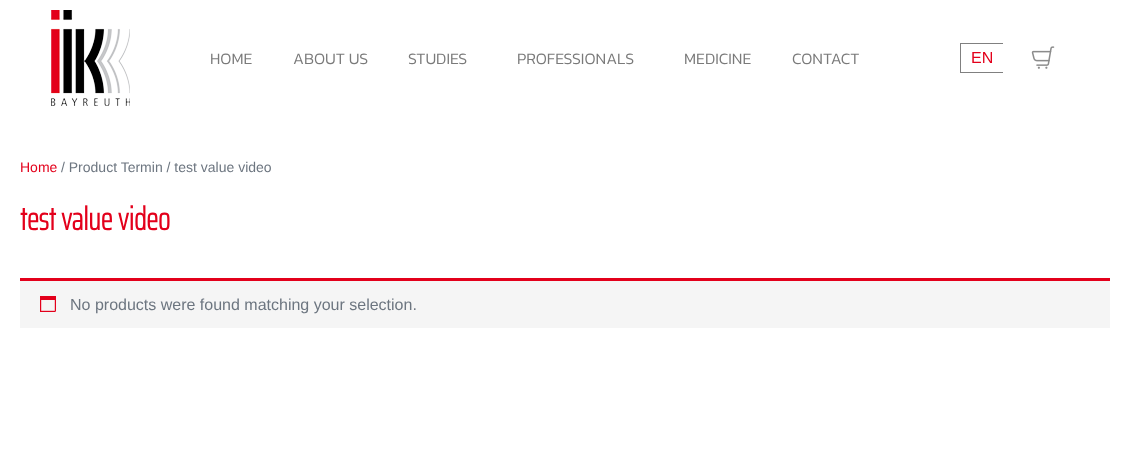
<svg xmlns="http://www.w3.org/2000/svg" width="1130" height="462">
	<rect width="100%" height="100%" fill="#FFFFFF" />
	<image x="51" y="10" width="79" height="96" href="assets/img1.png" />
	<g font-family="Kanit" font-size="16" font-weight="300" fill="#7A7A7A">
		<text x="210" y="64">HOME</text>
		<text x="293" y="64">ABOUT US</text>
		<text x="408" y="64">STUDIES</text>
		<text x="517" y="64">PROFESSIONALS</text>
		<text x="684" y="64">MEDICINE</text>
		<text x="792" y="64">CONTACT</text>
	</g>
	<rect x="960" y="43" width="43" height="1" fill="#808080" />
	<rect x="960" y="72" width="43" height="1" fill="#808080" />
	<rect x="960" y="43" width="1" height="30" fill="#808080" />
	<text x="971" y="63" font-family="Liberation Sans" font-size="16" fill="#E3001B">EN</text>
	<image x="1031" y="46" width="24" height="23" href="assets/img2.png" />
	<text x="20" y="172" font-family="Liberation Sans" font-size="14" fill="#E3001B">Home</text>
	<text x="61" y="172" font-family="Liberation Sans" font-size="14" fill="#6D7680">/ Product Termin / test value video</text>
	<text x="20" y="230" font-family="Saira ExtraCondensed" font-size="32" font-weight="700" fill="#E3001B">test value video</text>
	<rect x="20" y="281" width="1090" height="47" fill="#F5F5F5" />
	<rect x="20" y="278" width="1090" height="3" fill="#E3001B" />
	<image x="40" y="296" width="16" height="16" href="assets/img3.png" />
	<text x="70" y="310" font-family="Liberation Sans" font-size="16" fill="#6D7680">No products were found matching your selection.</text>
</svg>
